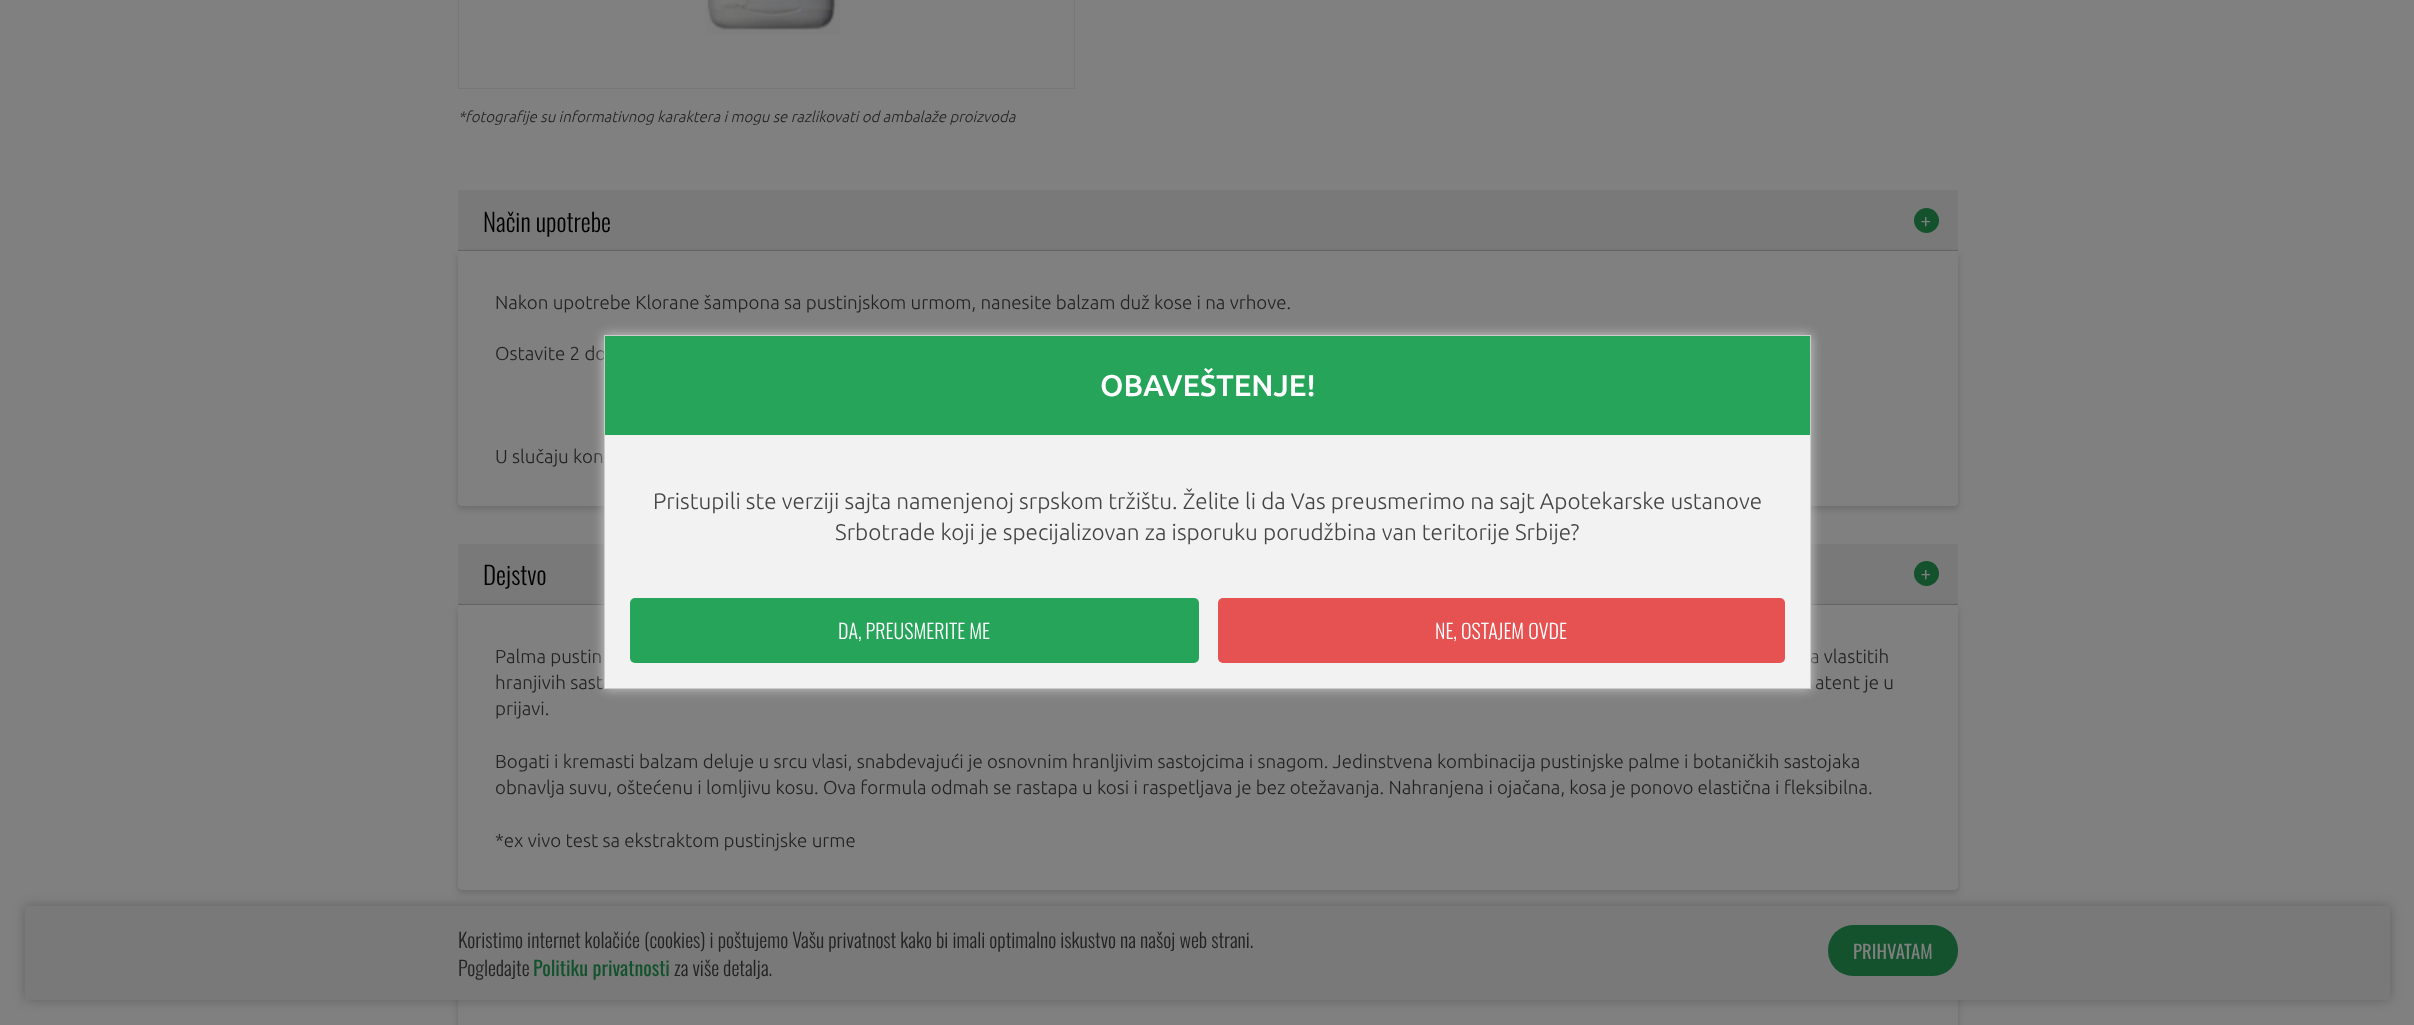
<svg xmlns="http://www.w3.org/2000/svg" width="2414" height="1025">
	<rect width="100%" height="100%" fill="#808080" />
	<rect x="458.5" y="-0.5" width="616" height="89" fill="none" stroke="#777777" />
	<image x="705" y="0" width="135" height="35" href="assets/img1.png" />
	<text x="458" y="122" font-family="Ubuntu" font-size="15" font-weight="300" font-style="italic" fill="#222222">*fotografije su informativnog karaktera i mogu se razlikovati od ambalaže proizvoda</text>
	<rect x="458" y="190" width="1500" height="60" fill="#797979" />
	<rect x="458" y="250" width="1500" height="1" fill="#666666" />
	<text x="483" y="232" font-family="Oswald" font-size="25" font-weight="300" fill="#000000">Način upotrebe</text>
	<circle cx="1926.5" cy="220.5" r="12.5" fill="#13522D" />
	<text x="1921" y="232" font-family="Oswald" font-size="25" font-weight="300" fill="#808080">+</text>
	<rect x="458" y="254" width="1500" height="255" rx="4" fill="#191919" fill-opacity="0.2" filter="blur(3px)" />
	<path d="M458 251H1958V502C1958 504 1956 506 1954 506H462C460 506 458 504 458 502Z" fill="#808080" />
	<g font-family="Ubuntu" font-size="18.75" font-weight="300" fill="#222222">
		<text x="495" y="309">Nakon upotrebe Klorane šampona sa pustinjskom urmom, nanesite balzam duž kose i na vrhove.</text>
		<text x="495" y="360">Ostavite 2 do</text>
		<text x="495" y="463">U slučaju kon</text>
	</g>
	<rect x="458" y="544" width="1500" height="60" fill="#797979" />
	<rect x="458" y="604" width="1500" height="1" fill="#666666" />
	<text x="483" y="585" font-family="Oswald" font-size="25" font-weight="300" fill="#000000">Dejstvo</text>
	<circle cx="1926.5" cy="573.5" r="12.5" fill="#13522D" />
	<text x="1921" y="585" font-family="Oswald" font-size="25" font-weight="300" fill="#808080">+</text>
	<rect x="458" y="608" width="1500" height="285" rx="4" fill="#191919" fill-opacity="0.2" filter="blur(3px)" />
	<path d="M458 605H1958V886C1958 888 1956 890 1954 890H462C460 890 458 888 458 886Z" fill="#808080" />
	<g font-family="Ubuntu" font-size="18.75" font-weight="300" fill="#222222">
		<text x="495" y="663">Palma pustin</text>
		<text x="1810" y="663">a vlastitih</text>
		<text x="495" y="689">hranjivih sast</text>
		<text x="1815" y="689">atent je u</text>
		<text x="495" y="715">prijavi.</text>
		<text x="495" y="768">Bogati i kremasti balzam deluje u srcu vlasi, snabdevajući je osnovnim hranljivim sastojcima i snagom. Jedinstvena kombinacija pustinjske palme i botaničkih sastojaka</text>
		<text x="495" y="794">obnavlja suvu, oštećenu i lomljivu kosu. Ova formula odmah se rastapa u kosi i raspetljava je bez otežavanja. Nahranjena i ojačana, kosa je ponovo elastična i fleksibilna.</text>
		<text x="495" y="847">*ex vivo test sa ekstraktom pustinjske urme</text>
	</g>
	<rect x="458" y="991" width="1500" height="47" rx="4" fill="#191919" fill-opacity="0.2" filter="blur(3px)" />
	<rect x="458" y="1000" width="1500" height="25" fill="#808080" />
	<rect x="604" y="335" width="1207" height="354" fill="#CCCCCC" filter="blur(6px)" />
	<rect x="605" y="435" width="1205" height="253" fill="#F2F2F2" />
	<rect x="604.5" y="335.5" width="1206" height="353" fill="none" stroke="#CCCCCC" />
	<rect x="605" y="336" width="1205" height="99" fill="#26A45A" />
	<text x="1100" y="396" font-family="Ubuntu" font-size="30" font-weight="500" fill="#FFFFFF">OBAVEŠTENJE!</text>
	<g font-family="Ubuntu" font-size="22.5" font-weight="300" fill="#444444">
		<text x="653" y="509">Pristupili ste verziji sajta namenjenoj srpskom tržištu. Želite li da Vas preusmerimo na sajt Apotekarske ustanove</text>
		<text x="835" y="540">Srbotrade koji je specijalizovan za isporuku porudžbina van teritorije Srbije?</text>
	</g>
	<rect x="630" y="598" width="569" height="65" rx="5" fill="#26A45A" />
	<text x="838" y="639" font-family="Oswald" font-size="20" font-weight="300" fill="#FFFFFF">DA, PREUSMERITE ME</text>
	<rect x="1218" y="598" width="567" height="65" rx="5" fill="#E65151" />
	<text x="1435" y="639" font-family="Oswald" font-size="20" font-weight="300" fill="#FFFFFF">NE, OSTAJEM OVDE</text>
	<rect x="25" y="906" width="2365" height="94" fill="#191919" fill-opacity="0.3" filter="blur(6px)" />
	<rect x="25" y="906" width="2365" height="94" fill="#797979" />
	<g font-family="Oswald" font-size="20" font-weight="300" fill="#222222">
		<text x="458" y="948">Koristimo internet kolačiće (cookies) i poštujemo Vašu privatnost kako bi imali optimalno iskustvo na našoj web strani.</text>
		<text x="458" y="976">Pogledajte</text>
	</g>
	<text x="533" y="976" font-family="Oswald" font-size="20" fill="#13522D">Politiku privatnosti</text>
	<text x="674" y="976" font-family="Oswald" font-size="20" font-weight="300" fill="#222222">za više detalja.</text>
	<rect x="1828" y="925" width="130" height="51" rx="25" fill="#13522D" />
	<text x="1853" y="959" font-family="Oswald" font-size="18.75" fill="#808080">PRIHVATAM</text>
</svg>
